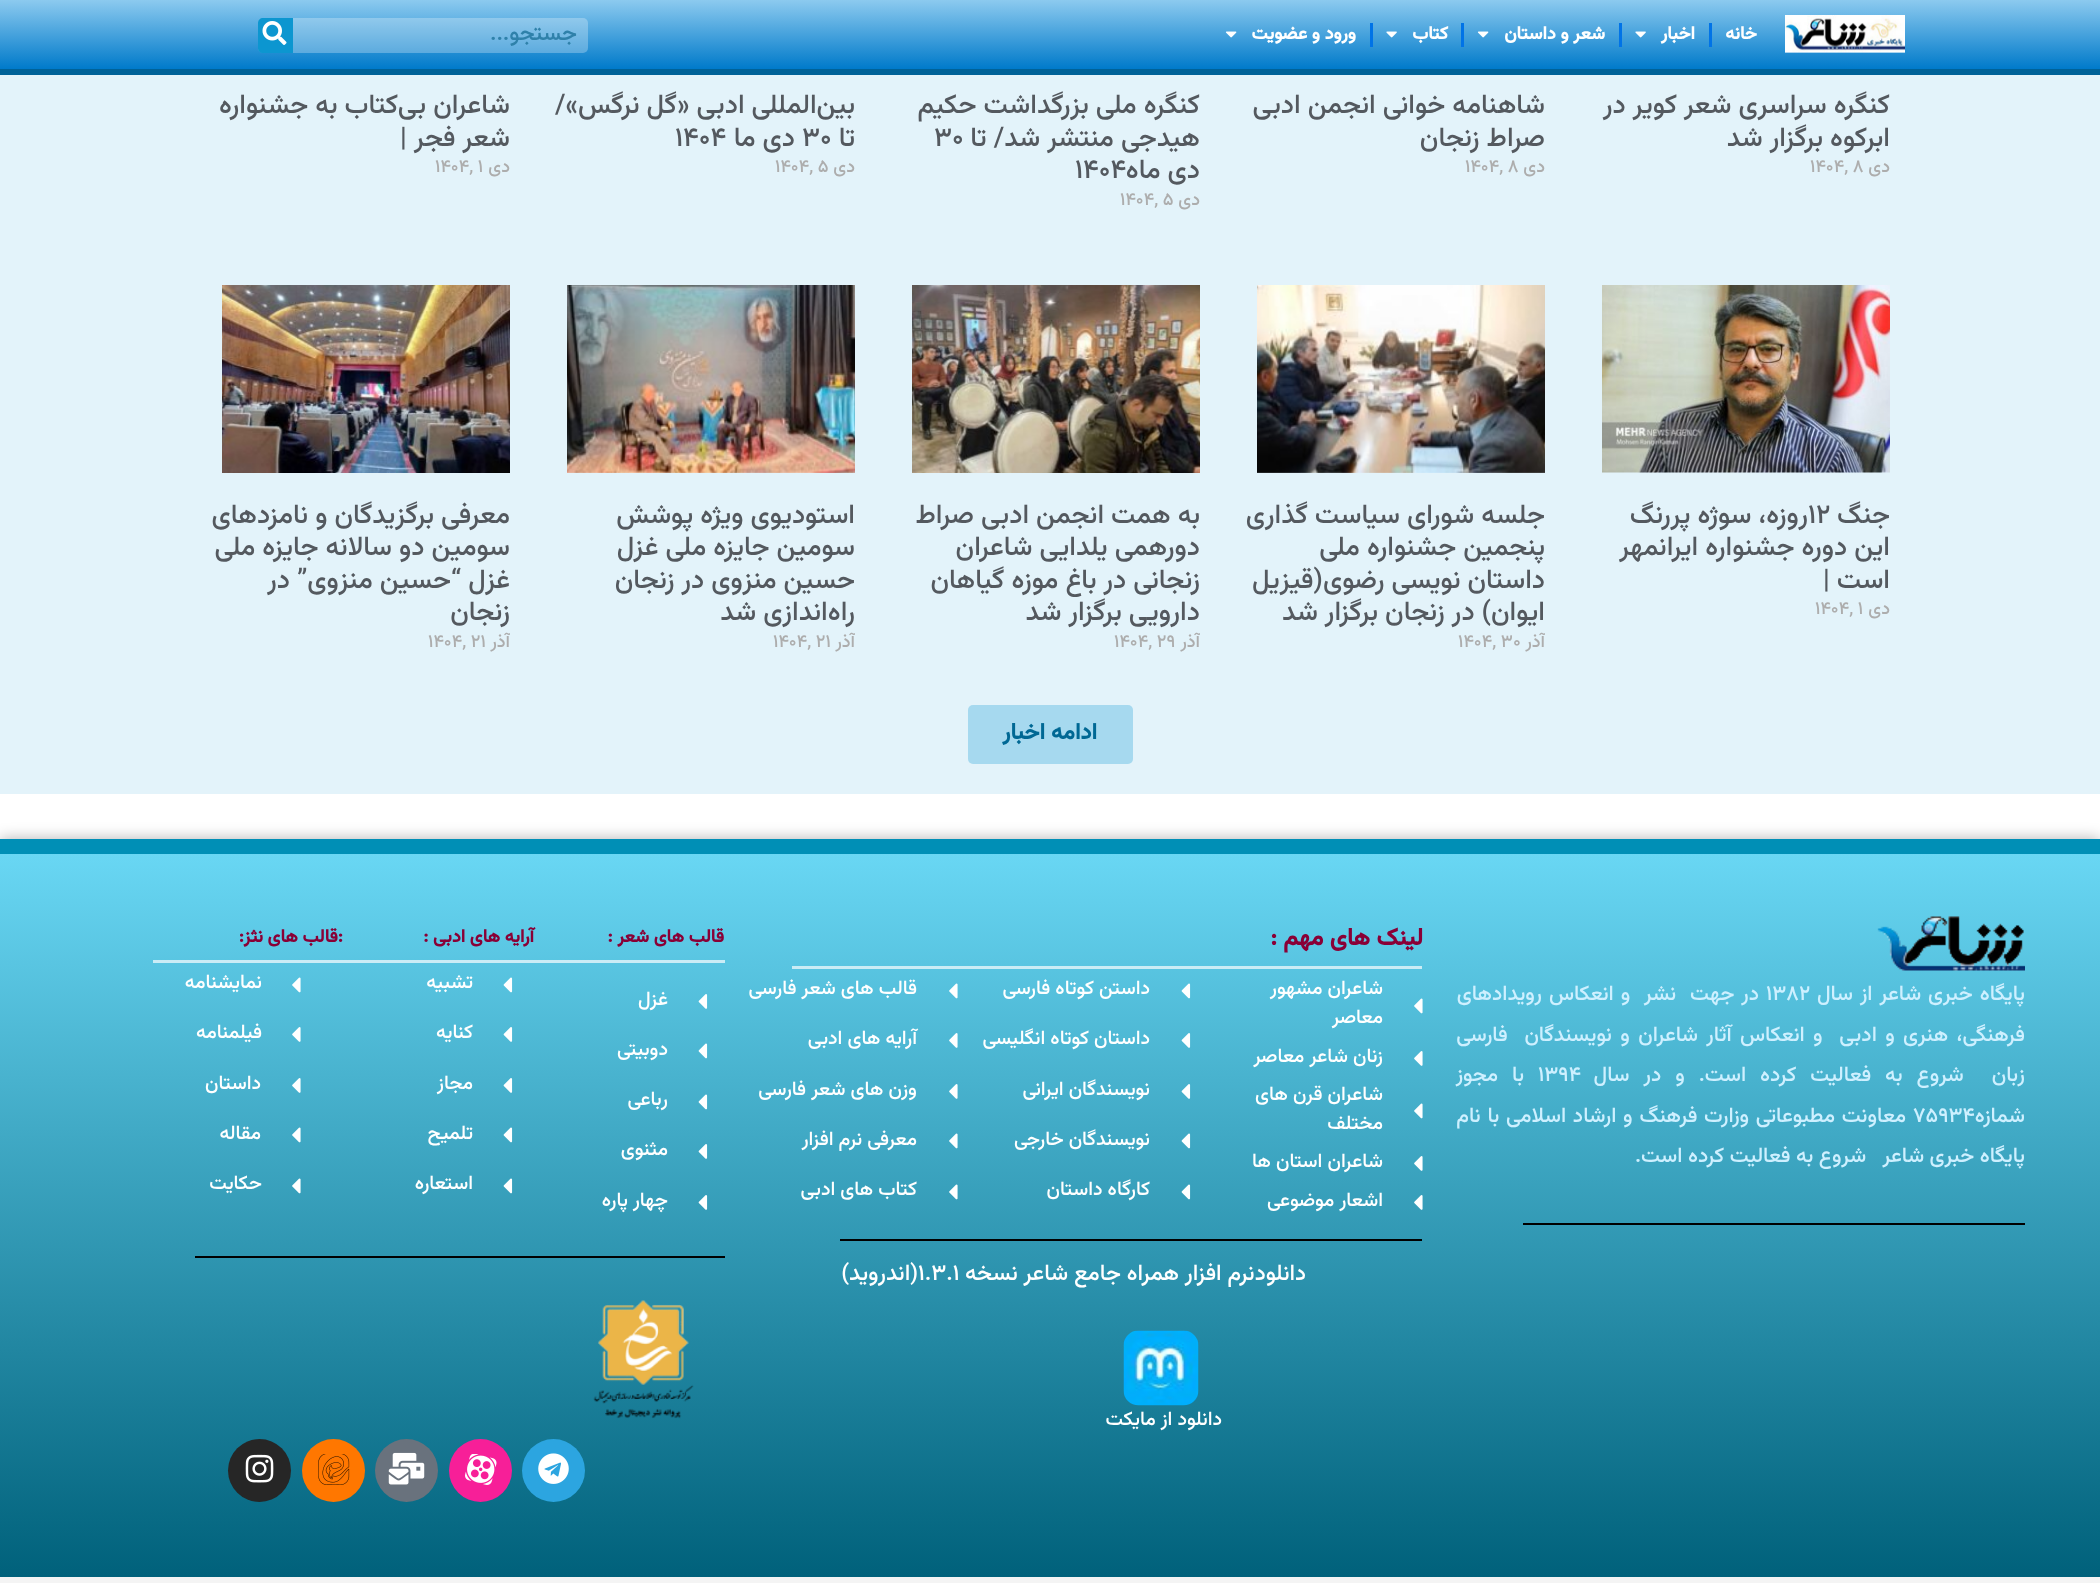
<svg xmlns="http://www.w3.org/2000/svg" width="2100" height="1583">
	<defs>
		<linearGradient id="g1" gradientUnits="userSpaceOnUse" x1="1050" y1="0" x2="1050" y2="69"><stop offset="0" stop-color="#8CCAEF" /><stop offset="1" stop-color="#007ACA" /></linearGradient>
		<clipPath id="clip1"><rect x="1245" y="285" width="300" height="390" /></clipPath>
		<clipPath id="clip2"><rect x="900" y="285" width="300" height="390" /></clipPath>
		<clipPath id="clip3"><rect x="555" y="285" width="300" height="390" /></clipPath>
		<clipPath id="clip4"><rect x="210" y="285" width="300" height="390" /></clipPath>
		<linearGradient id="g2" gradientUnits="userSpaceOnUse" x1="1050" y1="853" x2="1050" y2="1577"><stop offset="0" stop-color="#69D7F4" /><stop offset="1" stop-color="#00617B" /></linearGradient>
	</defs>
	<rect width="100%" height="100%" fill="#FFFFFF" />
	<rect x="0" y="0" width="2100" height="69" fill="url(#g1)" />
	<rect x="0" y="69" width="2100" height="6" fill="#006298" />
	<image x="1785" y="15" width="120" height="38" href="assets/img1.png" />
	<text x="1757" y="39" font-family="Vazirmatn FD" font-size="18" font-weight="700" direction="rtl" fill="#FFFFFF">خانه</text>
	<rect x="1709" y="23" width="3" height="24" fill="#0073E7" />
	<text x="1695" y="39" font-family="Vazirmatn FD" font-size="18" font-weight="700" direction="rtl" fill="#FFFFFF">اخبار</text>
	<image x="1635" y="31" width="11" height="7" href="assets/img2.png" />
	<rect x="1619" y="23" width="3" height="24" fill="#0073E7" />
	<text x="1605" y="39" font-family="Vazirmatn FD" font-size="18" font-weight="700" direction="rtl" fill="#FFFFFF">شعر و داستان</text>
	<image x="1477" y="31" width="12" height="7" href="assets/img3.png" />
	<rect x="1461" y="23" width="3" height="24" fill="#0073E7" />
	<text x="1448" y="39" font-family="Vazirmatn FD" font-size="18" font-weight="700" direction="rtl" fill="#FFFFFF">کتاب</text>
	<image x="1386" y="31" width="11" height="7" href="assets/img2.png" />
	<rect x="1370" y="23" width="3" height="24" fill="#0073E7" />
	<text x="1356" y="39" font-family="Vazirmatn FD" font-size="18" font-weight="700" direction="rtl" fill="#FFFFFF">ورود و عضویت</text>
	<image x="1225" y="31" width="12" height="7" href="assets/img3.png" />
	<rect x="258" y="18" width="330" height="35" rx="5" fill="#FFFEFE" fill-opacity="0.27" />
	<text x="577" y="40" font-family="Vazirmatn FD" font-size="22.5" font-weight="500" direction="rtl" fill="#2F81AA">جستجو...</text>
	<path d="M263 18H293V53H263C260 53 258 51 258 48V23C258 20 260 18 263 18Z" fill="#0C96D0" />
	<image x="262" y="21" width="25" height="24" href="assets/img4.png" />
	<rect x="0" y="75" width="2100" height="719" fill="#E3F3FA" />
	<g font-family="Vazirmatn FD" font-size="27" font-weight="500" direction="rtl" fill="#54595F">
		<text x="1890" y="113">کنگره سراسری شعر کویر در</text>
		<text x="1890" y="146">ابرکوه برگزار شد</text>
	</g>
	<text x="1890" y="172" font-family="Vazirmatn FD" font-size="18" font-weight="500" direction="rtl" fill="#ADADAD">دی</text>
	<text x="1810" y="172" font-family="Vazirmatn FD" font-size="18" font-weight="500" fill="#ADADAD">1404, 8</text>
	<g font-family="Vazirmatn FD" font-size="27" font-weight="500" direction="rtl" fill="#54595F">
		<text x="1545" y="113">شاهنامه خوانی انجمن ادبی</text>
		<text x="1545" y="146">صراط زنجان</text>
	</g>
	<text x="1545" y="172" font-family="Vazirmatn FD" font-size="18" font-weight="500" direction="rtl" fill="#ADADAD">دی</text>
	<text x="1465" y="172" font-family="Vazirmatn FD" font-size="18" font-weight="500" fill="#ADADAD">1404, 8</text>
	<g font-family="Vazirmatn FD" font-size="27" font-weight="500" direction="rtl" fill="#54595F">
		<text x="1200" y="113">کنگره ملی بزرگداشت حکیم</text>
		<text x="1200" y="146">هیدجی منتشر شد/ تا</text>
	</g>
	<text x="934" y="146" font-family="Vazirmatn FD" font-size="27" font-weight="500" fill="#54595F">30</text>
	<text x="1200" y="178" font-family="Vazirmatn FD" font-size="27" font-weight="500" direction="rtl" fill="#54595F">دی ماه</text>
	<text x="1075" y="178" font-family="Vazirmatn FD" font-size="27" font-weight="500" fill="#54595F">1404</text>
	<text x="1200" y="205" font-family="Vazirmatn FD" font-size="18" font-weight="500" direction="rtl" fill="#ADADAD">دی</text>
	<text x="1120" y="205" font-family="Vazirmatn FD" font-size="18" font-weight="500" fill="#ADADAD">1404, 5</text>
	<g font-family="Vazirmatn FD" font-size="27" font-weight="500" direction="rtl" fill="#54595F">
		<text x="855" y="113">بین‌المللی ادبی «گل نرگس»/</text>
		<text x="855" y="146">تا</text>
	</g>
	<text x="802" y="146" font-family="Vazirmatn FD" font-size="27" font-weight="500" fill="#54595F">30</text>
	<text x="795" y="146" font-family="Vazirmatn FD" font-size="27" font-weight="500" direction="rtl" fill="#54595F">دی ما</text>
	<text x="675" y="146" font-family="Vazirmatn FD" font-size="27" font-weight="500" fill="#54595F">1404</text>
	<text x="855" y="172" font-family="Vazirmatn FD" font-size="18" font-weight="500" direction="rtl" fill="#ADADAD">دی</text>
	<text x="775" y="172" font-family="Vazirmatn FD" font-size="18" font-weight="500" fill="#ADADAD">1404, 5</text>
	<g font-family="Vazirmatn FD" font-size="27" font-weight="500" direction="rtl" fill="#54595F">
		<text x="510" y="113">شاعران بی‌کتاب به جشنواره</text>
		<text x="510" y="146">شعر فجر</text>
	</g>
	<text x="400" y="146" font-family="Vazirmatn FD" font-size="27" font-weight="500" fill="#54595F">|</text>
	<text x="510" y="172" font-family="Vazirmatn FD" font-size="18" font-weight="500" direction="rtl" fill="#ADADAD">دی</text>
	<text x="435" y="172" font-family="Vazirmatn FD" font-size="18" font-weight="500" fill="#ADADAD">1404, 1</text>
	<image x="1602" y="285" width="288" height="188" href="assets/img5.png" />
	<text x="1890" y="523" font-family="Vazirmatn FD" font-size="27" font-weight="500" direction="rtl" fill="#54595F">جنگ</text>
	<text x="1808" y="523" font-family="Vazirmatn FD" font-size="27" font-weight="500" fill="#54595F">۱۲</text>
	<g font-family="Vazirmatn FD" font-size="27" font-weight="500" direction="rtl" fill="#54595F">
		<text x="1808" y="523">روزه، سوژه پررنگ</text>
		<text x="1890" y="555">این دوره جشنواره ایرانمهر</text>
		<text x="1890" y="588">است</text>
	</g>
	<text x="1823" y="588" font-family="Vazirmatn FD" font-size="27" font-weight="500" fill="#54595F">|</text>
	<text x="1890" y="614" font-family="Vazirmatn FD" font-size="18" font-weight="500" direction="rtl" fill="#ADADAD">دی</text>
	<text x="1815" y="614" font-family="Vazirmatn FD" font-size="18" font-weight="500" fill="#ADADAD">1404, 1</text>
	<image x="1257" y="285" width="288" height="188" href="assets/img6.png" />
	<g font-family="Vazirmatn FD" font-size="27" font-weight="500" direction="rtl" fill="#54595F">
		<text x="1545" y="523">جلسه شورای سیاست گذاری</text>
		<text x="1545" y="555">پنجمین جشنواره ملی</text>
		<text x="1545" y="588">داستان نویسی رضوی(قیزیل</text>
		<text x="1545" y="620">ایوان) در زنجان برگزار شد</text>
	</g>
	<g clip-path="url(#clip1)">
		<text x="1545" y="647" font-family="Vazirmatn FD" font-size="18" font-weight="500" direction="rtl" fill="#ADADAD">آذر</text>
	</g>
	<text x="1458" y="647" font-family="Vazirmatn FD" font-size="18" font-weight="500" fill="#ADADAD">1404, 30</text>
	<image x="912" y="285" width="288" height="188" href="assets/img7.png" />
	<g font-family="Vazirmatn FD" font-size="27" font-weight="500" direction="rtl" fill="#54595F">
		<text x="1200" y="523">به همت انجمن ادبی صراط</text>
		<text x="1200" y="555">دورهمی یلدایی شاعران</text>
		<text x="1200" y="588">زنجانی در باغ موزه گیاهان</text>
		<text x="1200" y="620">دارویی برگزار شد</text>
	</g>
	<g clip-path="url(#clip2)">
		<text x="1200" y="647" font-family="Vazirmatn FD" font-size="18" font-weight="500" direction="rtl" fill="#ADADAD">آذر</text>
	</g>
	<text x="1114" y="647" font-family="Vazirmatn FD" font-size="18" font-weight="500" fill="#ADADAD">1404, 29</text>
	<image x="567" y="285" width="288" height="188" href="assets/img8.png" />
	<g font-family="Vazirmatn FD" font-size="27" font-weight="500" direction="rtl" fill="#54595F">
		<text x="855" y="523">استودیوی ویژه پوشش</text>
		<text x="855" y="555">سومین جایزه ملی غزل</text>
		<text x="855" y="588">حسین منزوی در زنجان</text>
		<text x="855" y="620">راه‌اندازی شد</text>
	</g>
	<g clip-path="url(#clip3)">
		<text x="855" y="647" font-family="Vazirmatn FD" font-size="18" font-weight="500" direction="rtl" fill="#ADADAD">آذر</text>
	</g>
	<text x="773" y="647" font-family="Vazirmatn FD" font-size="18" font-weight="500" fill="#ADADAD">1404, 21</text>
	<image x="222" y="285" width="288" height="188" href="assets/img9.png" />
	<g font-family="Vazirmatn FD" font-size="27" font-weight="500" direction="rtl" fill="#54595F">
		<text x="510" y="523">معرفی برگزیدگان و نامزدهای</text>
		<text x="510" y="555">سومین دو سالانه جایزه ملی</text>
		<text x="510" y="588">غزل “حسین منزوی” در</text>
		<text x="510" y="620">زنجان</text>
	</g>
	<g clip-path="url(#clip4)">
		<text x="510" y="647" font-family="Vazirmatn FD" font-size="18" font-weight="500" direction="rtl" fill="#ADADAD">آذر</text>
	</g>
	<text x="428" y="647" font-family="Vazirmatn FD" font-size="18" font-weight="500" fill="#ADADAD">1404, 21</text>
	<rect x="968" y="705" width="165" height="59" rx="5" fill="#A6D9EF" />
	<text x="1097" y="739" font-family="Vazirmatn FD" font-size="22.5" font-weight="700" direction="rtl" fill="#006894">ادامه اخبار</text>
	<rect x="0" y="839" width="2100" height="738" fill="#000000" fill-opacity="0.31" filter="blur(7.5px)" />
	<rect x="0" y="854" width="2100" height="723" fill="url(#g2)" />
	<rect x="0" y="839" width="2100" height="15" fill="#008FB6" />
	<image x="1877" y="916" width="148" height="55" href="assets/img10.png" />
	<text x="2025" y="1000" word-spacing="1.5" font-family="Vazirmatn FD" font-size="21" font-weight="500" direction="rtl" fill="#CEF0FF">پایگاه خبری شاعر از سال</text>
	<text x="1766" y="1000" font-family="Vazirmatn FD" font-size="21" font-weight="500" fill="#CEF0FF">1382</text>
	<g font-family="Vazirmatn FD" font-size="21" font-weight="500" direction="rtl" fill="#CEF0FF">
		<text x="1759" y="1000" word-spacing="1.5" xml:space="preserve">در جهت  نشر  و انعکاس رویدادهای</text>
		<text x="2025" y="1041" word-spacing="2.9" xml:space="preserve">فرهنگی، هنری و ادبی  و انعکاس آثار شاعران و نویسندگان  فارسی</text>
		<text x="2025" y="1081" word-spacing="8.5" xml:space="preserve">زبان  شروع به فعالیت کرده است. و در سال</text>
	</g>
	<text x="1538" y="1081" font-family="Vazirmatn FD" font-size="21" font-weight="500" fill="#CEF0FF">1394</text>
	<g font-family="Vazirmatn FD" font-size="21" font-weight="500" direction="rtl" fill="#CEF0FF">
		<text x="1524" y="1081" word-spacing="8.5">با مجوز</text>
		<text x="2025" y="1122">شمازه</text>
	</g>
	<text x="1913" y="1122" font-family="Vazirmatn FD" font-size="21" font-weight="500" fill="#CEF0FF">75934</text>
	<g font-family="Vazirmatn FD" font-size="21" font-weight="500" direction="rtl" fill="#CEF0FF">
		<text x="1906" y="1122" word-spacing="1.25">معاونت مطبوعاتی وزارت فرهنگ و ارشاد اسلامی با نام</text>
		<text x="2025" y="1162" xml:space="preserve">پایگاه خبری شاعر   شروع به فعالیت کرده است.</text>
	</g>
	<rect x="1523" y="1223" width="502" height="2" fill="#000000" />
	<rect x="792" y="966" width="630" height="3" fill="#CAECF5" />
	<text x="1423" y="945" font-family="Vazirmatn FD" font-size="24" font-weight="700" direction="rtl" fill="#890036">لینک های مهم :</text>
	<image x="1414" y="998" width="9" height="16" href="assets/img11.png" />
	<g font-family="Vazirmatn FD" font-size="19.5" font-weight="500" direction="rtl" fill="#FFFFFF">
		<text x="1383" y="994">شاعران مشهور</text>
		<text x="1383" y="1023">معاصر</text>
	</g>
	<image x="1414" y="1051" width="9" height="15" href="assets/img12.png" />
	<text x="1383" y="1062" font-family="Vazirmatn FD" font-size="19.5" font-weight="500" direction="rtl" fill="#FFFFFF">زنان شاعر معاصر</text>
	<image x="1414" y="1103" width="9" height="16" href="assets/img13.png" />
	<g font-family="Vazirmatn FD" font-size="19.5" font-weight="500" direction="rtl" fill="#FFFFFF">
		<text x="1383" y="1100">شاعران قرن های</text>
		<text x="1383" y="1129">مختلف</text>
	</g>
	<image x="1414" y="1156" width="9" height="15" href="assets/img14.png" />
	<text x="1383" y="1167" font-family="Vazirmatn FD" font-size="19.5" font-weight="500" direction="rtl" fill="#FFFFFF">شاعران استان ها</text>
	<image x="1414" y="1195" width="9" height="15" href="assets/img15.png" />
	<text x="1383" y="1206" font-family="Vazirmatn FD" font-size="19.5" font-weight="500" direction="rtl" fill="#FFFFFF">اشعار موضوعی</text>
	<image x="1181" y="983" width="10" height="16" href="assets/img16.png" />
	<text x="1150" y="994" font-family="Vazirmatn FD" font-size="19.5" font-weight="500" direction="rtl" fill="#FFFFFF">داستن کوتاه فارسی</text>
	<image x="1181" y="1033" width="10" height="15" href="assets/img17.png" />
	<text x="1150" y="1044" font-family="Vazirmatn FD" font-size="19.5" font-weight="500" direction="rtl" fill="#FFFFFF">داستان کوتاه انگلیسی</text>
	<image x="1181" y="1084" width="10" height="15" href="assets/img18.png" />
	<text x="1150" y="1095" font-family="Vazirmatn FD" font-size="19.5" font-weight="500" direction="rtl" fill="#FFFFFF">نویسندگان ایرانی</text>
	<image x="1181" y="1133" width="10" height="16" href="assets/img19.png" />
	<text x="1150" y="1145" font-family="Vazirmatn FD" font-size="19.5" font-weight="500" direction="rtl" fill="#FFFFFF">نویسندگان خارجی</text>
	<image x="1181" y="1184" width="10" height="16" href="assets/img20.png" />
	<text x="1150" y="1195" font-family="Vazirmatn FD" font-size="19.5" font-weight="500" direction="rtl" fill="#FFFFFF">کارگاه داستان</text>
	<image x="949" y="983" width="9" height="16" href="assets/img21.png" />
	<text x="917" y="994" font-family="Vazirmatn FD" font-size="19.5" font-weight="500" direction="rtl" fill="#FFFFFF">قالب های شعر فارسی</text>
	<image x="949" y="1033" width="9" height="15" href="assets/img22.png" />
	<text x="917" y="1044" font-family="Vazirmatn FD" font-size="19.5" font-weight="500" direction="rtl" fill="#FFFFFF">آرایه های ادبی</text>
	<image x="949" y="1084" width="9" height="15" href="assets/img23.png" />
	<text x="917" y="1095" font-family="Vazirmatn FD" font-size="19.5" font-weight="500" direction="rtl" fill="#FFFFFF">وزن های شعر فارسی</text>
	<image x="949" y="1133" width="9" height="16" href="assets/img24.png" />
	<text x="917" y="1145" font-family="Vazirmatn FD" font-size="19.5" font-weight="500" direction="rtl" fill="#FFFFFF">معرفی نرم افزار</text>
	<image x="949" y="1184" width="9" height="16" href="assets/img25.png" />
	<text x="917" y="1195" font-family="Vazirmatn FD" font-size="19.5" font-weight="500" direction="rtl" fill="#FFFFFF">کتاب های ادبی</text>
	<rect x="840" y="1239" width="582" height="2" fill="#000000" />
	<text x="1306" y="1280" font-family="Vazirmatn FD" font-size="22.5" font-weight="500" direction="rtl" fill="#FFFFFF">دانلودنرم افزار همراه جامع شاعر نسخه</text>
	<text x="918" y="1280" font-family="Vazirmatn FD" font-size="22.5" font-weight="500" fill="#FFFFFF">1.3.1</text>
	<text x="918" y="1280" font-family="Vazirmatn FD" font-size="22.5" font-weight="500" direction="rtl" fill="#FFFFFF">(اندروید)</text>
	<image x="1123" y="1330" width="76" height="76" href="assets/img26.png" />
	<text x="1222" y="1425" font-family="Vazirmatn FD" font-size="19.5" font-weight="500" direction="rtl" fill="#FFFFFF">دانلود از مایکت</text>
	<rect x="153" y="960" width="572" height="3" fill="#CAECF6" />
	<g font-family="Vazirmatn FD" font-size="18" font-weight="700" direction="rtl" fill="#890036">
		<text x="724" y="942">قالب های شعر :</text>
		<text x="534" y="942">آرایه های ادبی :</text>
		<text x="343" y="942">:قالب های</text>
		<text x="263" y="942">نثز:</text>
	</g>
	<image x="698" y="994" width="10" height="15" href="assets/img27.png" />
	<text x="668" y="1005" font-family="Vazirmatn FD" font-size="19.5" font-weight="500" direction="rtl" fill="#FFFFFF">غزل</text>
	<image x="698" y="1043" width="10" height="16" href="assets/img28.png" />
	<text x="668" y="1055" font-family="Vazirmatn FD" font-size="19.5" font-weight="500" direction="rtl" fill="#FFFFFF">دوبیتی</text>
	<image x="698" y="1094" width="10" height="16" href="assets/img29.png" />
	<text x="668" y="1105" font-family="Vazirmatn FD" font-size="19.5" font-weight="500" direction="rtl" fill="#FFFFFF">رباعی</text>
	<image x="698" y="1144" width="10" height="15" href="assets/img30.png" />
	<text x="668" y="1155" font-family="Vazirmatn FD" font-size="19.5" font-weight="500" direction="rtl" fill="#FFFFFF">مثنوی</text>
	<image x="698" y="1195" width="10" height="15" href="assets/img31.png" />
	<text x="668" y="1206" font-family="Vazirmatn FD" font-size="19.5" font-weight="500" direction="rtl" fill="#FFFFFF">چهار پاره</text>
	<image x="503" y="977" width="10" height="16" href="assets/img32.png" />
	<text x="473" y="988" font-family="Vazirmatn FD" font-size="19.5" font-weight="500" direction="rtl" fill="#FFFFFF">تشبیه</text>
	<image x="503" y="1027" width="10" height="15" href="assets/img33.png" />
	<text x="473" y="1038" font-family="Vazirmatn FD" font-size="19.5" font-weight="500" direction="rtl" fill="#FFFFFF">کنایه</text>
	<image x="503" y="1078" width="10" height="15" href="assets/img34.png" />
	<text x="473" y="1089" font-family="Vazirmatn FD" font-size="19.5" font-weight="500" direction="rtl" fill="#FFFFFF">مجاز</text>
	<image x="503" y="1127" width="10" height="16" href="assets/img35.png" />
	<text x="473" y="1139" font-family="Vazirmatn FD" font-size="19.5" font-weight="500" direction="rtl" fill="#FFFFFF">تلمیح</text>
	<image x="503" y="1178" width="10" height="16" href="assets/img36.png" />
	<text x="473" y="1189" font-family="Vazirmatn FD" font-size="19.5" font-weight="500" direction="rtl" fill="#FFFFFF">استعاره</text>
	<image x="292" y="977" width="9" height="16" href="assets/img37.png" />
	<text x="262" y="988" font-family="Vazirmatn FD" font-size="19.5" font-weight="500" direction="rtl" fill="#FFFFFF">نمایشنامه</text>
	<image x="292" y="1027" width="9" height="15" href="assets/img38.png" />
	<text x="262" y="1038" font-family="Vazirmatn FD" font-size="19.5" font-weight="500" direction="rtl" fill="#FFFFFF">فیلمنامه</text>
	<image x="292" y="1078" width="9" height="15" href="assets/img39.png" />
	<text x="261" y="1089" font-family="Vazirmatn FD" font-size="19.5" font-weight="500" direction="rtl" fill="#FFFFFF">داستان</text>
	<image x="292" y="1127" width="9" height="16" href="assets/img40.png" />
	<text x="261" y="1139" font-family="Vazirmatn FD" font-size="19.5" font-weight="500" direction="rtl" fill="#FFFFFF">مقاله</text>
	<image x="292" y="1178" width="9" height="16" href="assets/img41.png" />
	<text x="262" y="1189" font-family="Vazirmatn FD" font-size="19.5" font-weight="500" direction="rtl" fill="#FFFFFF">حکایت</text>
	<rect x="195" y="1256" width="530" height="2" fill="#000000" />
	<image x="593" y="1300" width="101" height="119" href="assets/img42.png" />
	<circle cx="553.5" cy="1470.5" r="31.5" fill="#2CA5E0" />
	<image x="538" y="1453" width="31" height="31" href="assets/img43.png" />
	<circle cx="480.5" cy="1470.5" r="31.5" fill="#F71F98" />
	<image x="465" y="1454" width="32" height="31" href="assets/img44.png" />
	<circle cx="406.5" cy="1470.5" r="31.5" fill="#69727D" />
	<image x="388" y="1452" width="37" height="33" href="assets/img45.png" />
	<circle cx="333.5" cy="1470.5" r="31.5" fill="#FF7700" />
	<image x="318" y="1454" width="32" height="31" href="assets/img46.png" />
	<circle cx="259.5" cy="1470.5" r="31.5" fill="#262626" />
	<image x="245" y="1454" width="29" height="29" href="assets/img47.png" />
	<rect x="0" y="1577" width="2100" height="6" fill="#F4F4F4" />
</svg>
